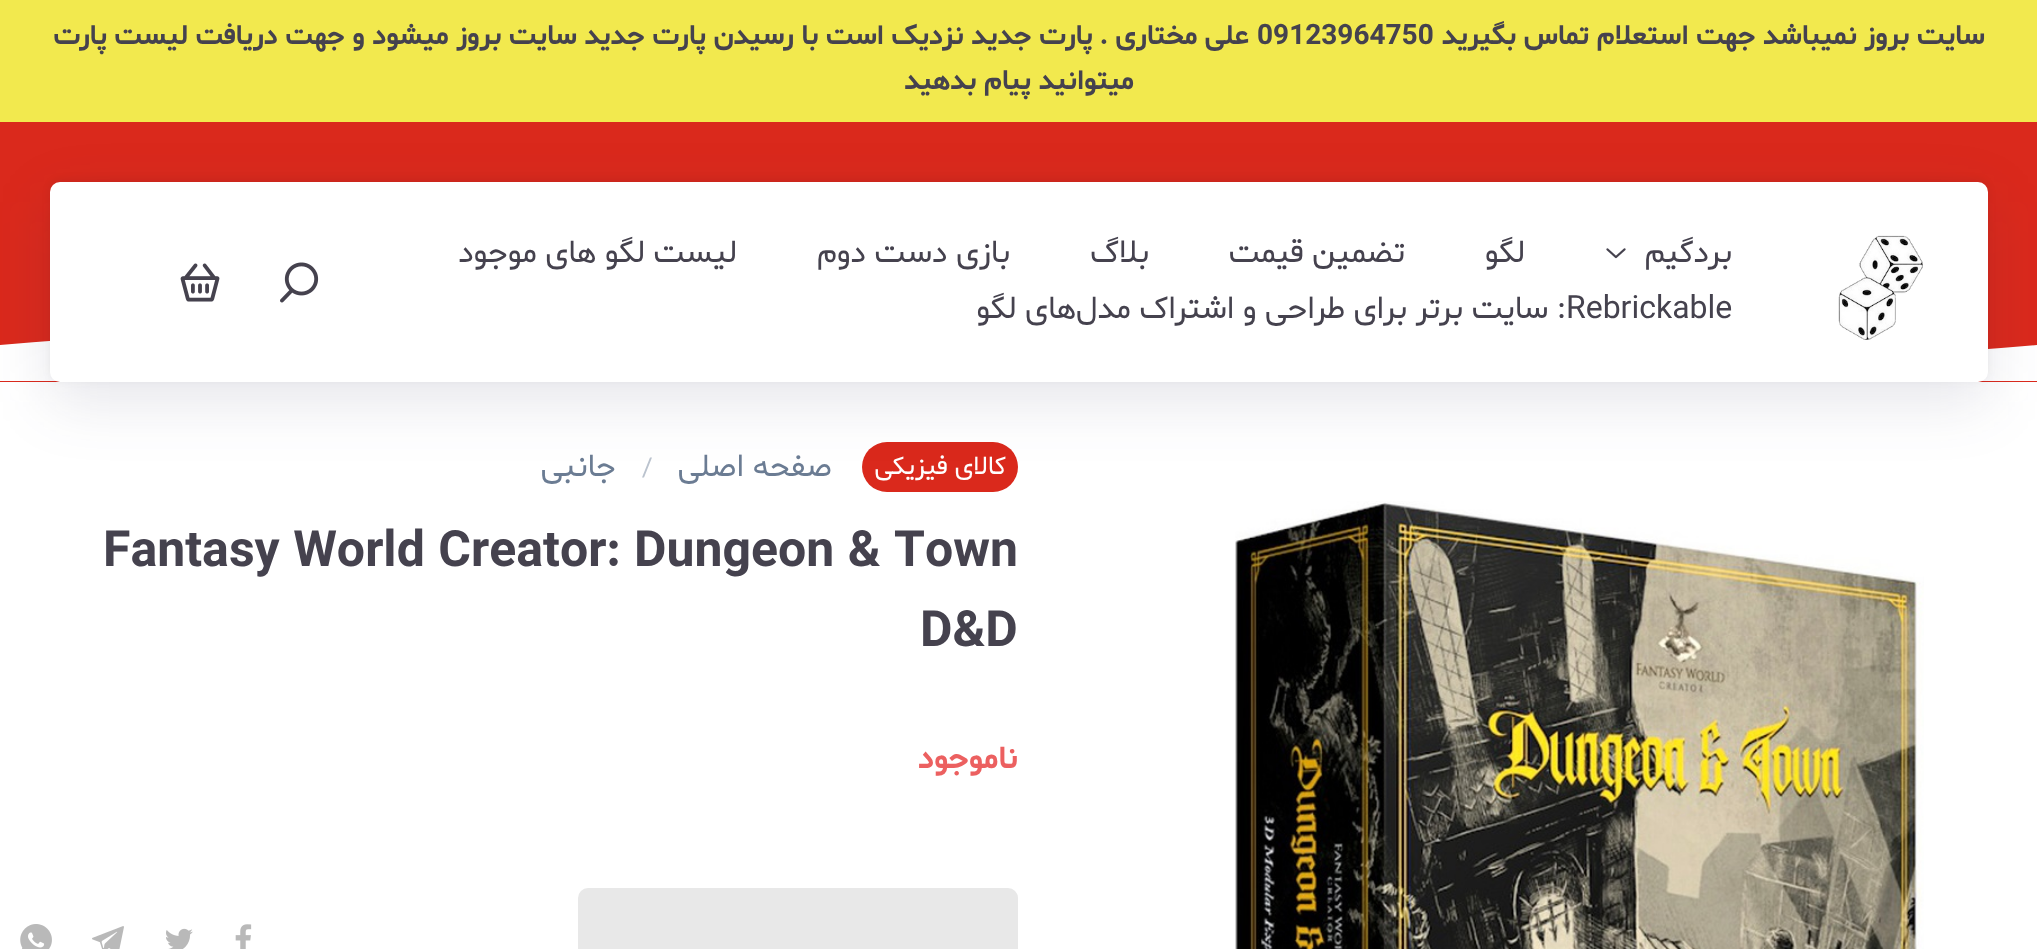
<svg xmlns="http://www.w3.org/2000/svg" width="2037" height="949">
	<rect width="100%" height="100%" fill="#FFFFFF" />
	<rect x="0" y="0" width="2037" height="122" fill="#F2E94E" />
	<text x="1985" y="44" font-family="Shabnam" font-size="28" font-weight="700" direction="rtl" fill="#45424E">سایت بروز نمیباشد جهت استعلام تماس بگیرید</text>
	<text x="1257" y="44" font-family="Shabnam" font-size="28" font-weight="700" fill="#45424E">09123964750</text>
	<g font-family="Shabnam" font-size="28" font-weight="700" direction="rtl" fill="#45424E">
		<text x="1249" y="44">علی مختاری .</text>
		<text x="1093" y="44">پارت جدید نزدیک است با رسیدن پارت جدید سایت بروز میشود و جهت دریافت لیست پارت</text>
		<text x="1134" y="89">میتوانید پیام بدهید</text>
	</g>
	<rect x="0" y="122" width="2037" height="260" fill="#DA291C" />
	<path d="M0 345C403 312 743 312 1020 345C1297 379 1636 379 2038 345V381H0Z" fill="#FFFFFF" />
	<rect x="50" y="180" width="1938" height="200" rx="10" fill="#000000" fill-opacity="0.06" filter="blur(4px)" />
	<rect x="862" y="442" width="156" height="50" rx="25" fill="#DA291C" />
	<path d="M650 457.5H652L644 477.5H642Z" fill="#BBC3CE" />
	<rect x="50" y="202" width="1938" height="200" rx="10" fill="#32325D" fill-opacity="0.12" filter="blur(30px)" />
	<rect x="50" y="182" width="1938" height="200" rx="10" fill="#FFFFFF" />
	<image x="1838" y="235" width="85" height="105" href="assets/img1.png" />
	<text x="1732" y="262" font-family="Shabnam" font-size="32" direction="rtl" fill="#45424E">بردگیم</text>
	<image x="1606" y="248" width="20" height="11" href="assets/img2.png" />
	<g font-family="Shabnam" font-size="32" direction="rtl" fill="#45424E">
		<text x="1525" y="262">لگو</text>
		<text x="1405" y="262">تضمین قیمت</text>
		<text x="1149" y="262">بلاگ</text>
		<text x="1010" y="262">بازی دست دوم</text>
		<text x="737" y="262">لیست لگو های موجود</text>
	</g>
	<text x="1566" y="318" font-family="Shabnam" font-size="32" fill="#45424E">Rebrickable</text>
	<text x="1566" y="318" font-family="Shabnam" font-size="32" direction="rtl" fill="#45424E">: سایت برتر برای طراحی و اشتراک مدل‌های لگو</text>
	<image x="280" y="262" width="39" height="41" href="assets/img3.png" />
	<image x="180" y="263" width="40" height="39" href="assets/img4.png" />
	<image x="1235" y="501" width="689" height="448" href="assets/img5.png" />
	<text x="1006" y="474" font-family="Shabnam" font-size="26" direction="rtl" fill="#FFFFFF">کالای فیزیکی</text>
	<g font-family="Shabnam" font-size="32" direction="rtl" fill="#6B7C93">
		<text x="832" y="476">صفحه اصلی</text>
		<text x="616" y="476">جانبی</text>
	</g>
	<g font-family="Shabnam" font-size="50" font-weight="700" fill="#45424E">
		<text x="103" y="566">Fantasy World Creator: Dungeon &amp; Town</text>
		<text x="920" y="646">D&amp;D</text>
	</g>
	<text x="1018" y="768" font-family="Shabnam" font-size="32" font-weight="700" direction="rtl" fill="#EC6060">ناموجود</text>
	<rect x="578" y="888" width="440" height="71" rx="10" fill="#E8E8E8" />
	<image x="235" y="924" width="17" height="25" href="assets/img6.png" />
	<image x="166" y="928" width="27" height="21" href="assets/img7.png" />
	<image x="92" y="926" width="32" height="23" href="assets/img8.png" />
	<image x="20" y="924" width="32" height="25" href="assets/img9.png" />
</svg>
